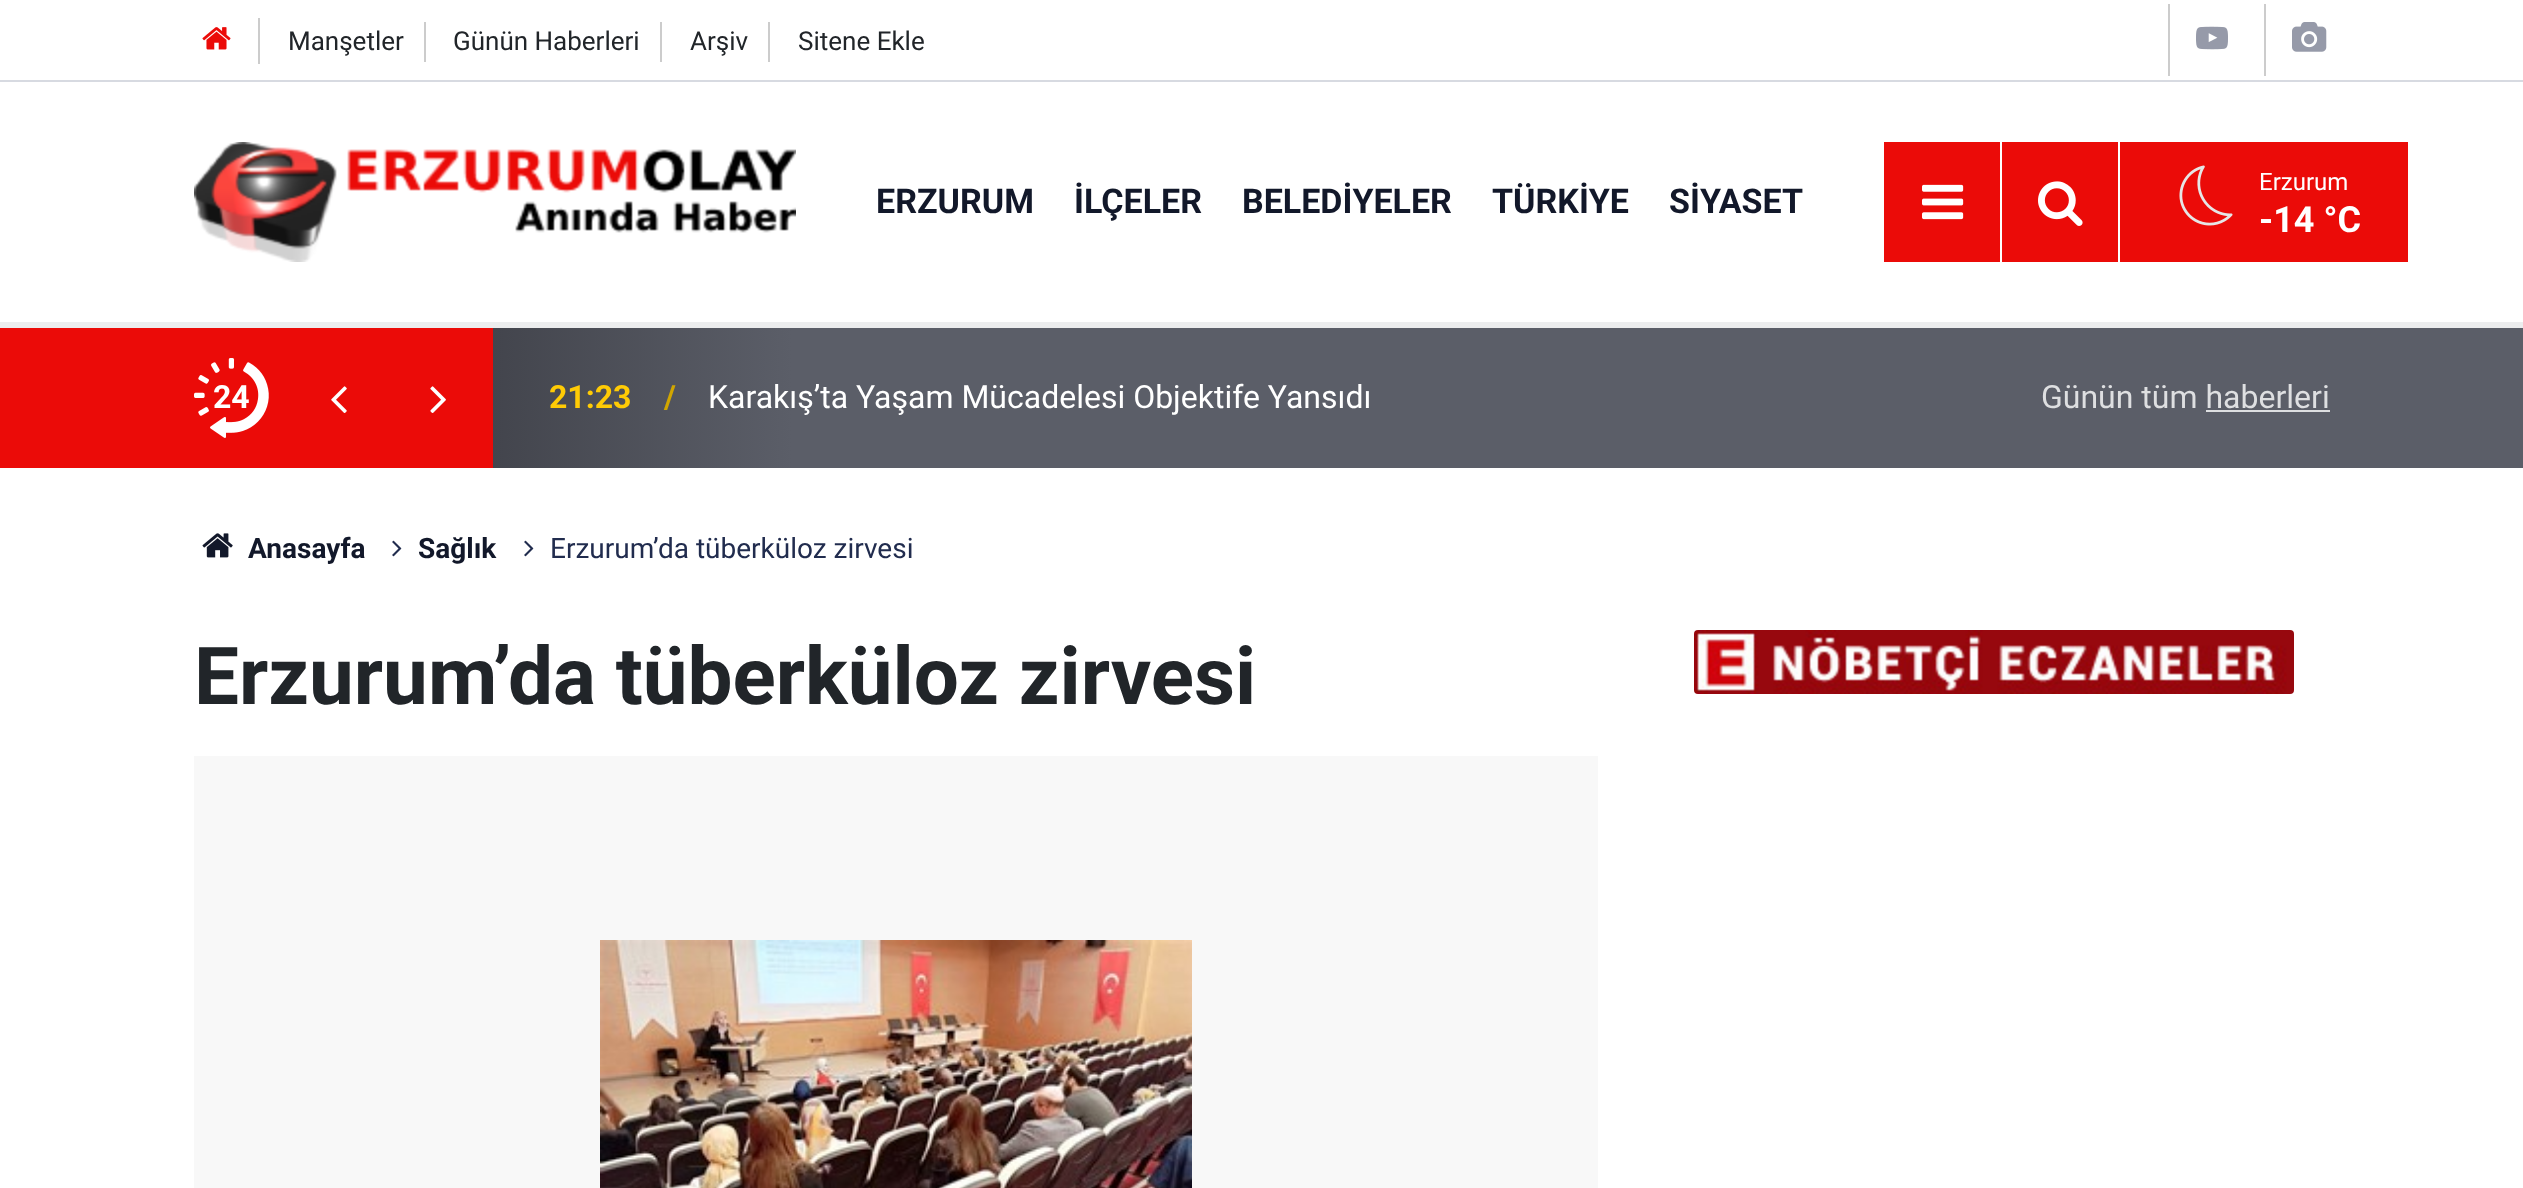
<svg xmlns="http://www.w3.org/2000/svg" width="2523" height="1188">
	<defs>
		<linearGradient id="g1" gradientUnits="userSpaceOnUse" x1="194" y1="398" x2="2330" y2="398"><stop offset="0.05" stop-color="#EB0B08" /><stop offset="0.14" stop-color="#EB0B08" /><stop offset="0.14" stop-color="#43454D" /><stop offset="0.28" stop-color="#5B5E68" /></linearGradient>
	</defs>
	<rect width="100%" height="100%" fill="#FFFFFF" />
	<rect x="258" y="18" width="2" height="46" fill="#CCCCCC" />
	<image x="202" y="27" width="29" height="23" href="assets/img1.png" />
	<rect x="424" y="22" width="2" height="40" fill="#CCCCCC" />
	<text x="288" y="50" font-family="Roboto" font-size="26" fill="#212529">Manşetler</text>
	<rect x="660" y="22" width="2" height="40" fill="#CCCCCC" />
	<text x="453" y="50" font-family="Roboto" font-size="26" fill="#212529">Günün Haberleri</text>
	<rect x="768" y="22" width="2" height="40" fill="#CCCCCC" />
	<g font-family="Roboto" font-size="26" fill="#212529">
		<text x="690" y="50">Arşiv</text>
		<text x="798" y="50">Sitene Ekle</text>
	</g>
	<rect x="2168" y="4" width="2" height="72" fill="#CCCCCC" />
	<image x="2196" y="26" width="32" height="24" href="assets/img2.png" />
	<rect x="2264" y="4" width="2" height="72" fill="#CCCCCC" />
	<image x="2292" y="22" width="35" height="30" href="assets/img3.png" />
	<rect x="0" y="80" width="2523" height="2" fill="#D7DAE1" />
	<rect x="0" y="322" width="2523" height="6" fill="#ECEDEE" />
	<image x="194" y="142" width="602" height="120" href="assets/img4.png" />
	<g font-family="Roboto" font-size="34" font-weight="700" fill="#12182A">
		<text x="876" y="213">ERZURUM</text>
		<text x="1074" y="213">İLÇELER</text>
		<text x="1242" y="213">BELEDİYELER</text>
		<text x="1492" y="213">TÜRKİYE</text>
		<text x="1669" y="213">SİYASET</text>
	</g>
	<rect x="1884" y="142" width="116" height="120" fill="#EB0B08" />
	<image x="1922" y="184" width="42" height="36" href="assets/img5.png" />
	<rect x="2002" y="142" width="116" height="120" fill="#EB0B08" />
	<image x="2038" y="181" width="45" height="45" href="assets/img6.png" />
	<rect x="2120" y="142" width="288" height="120" fill="#EB0B08" />
	<image x="2179" y="165" width="54" height="61" href="assets/img7.png" />
	<text x="2259" y="190" font-family="Roboto" font-size="24" fill="#FFFFFF">Erzurum</text>
	<text x="2259" y="232" font-family="Roboto" font-size="36" font-weight="700" fill="#FFFFFF">-14 °C</text>
	<rect x="0" y="328" width="194" height="140" fill="#EB0B08" />
	<rect x="2330" y="328" width="193" height="140" fill="#5B5E68" />
	<rect x="194" y="328" width="2136" height="140" fill="url(#g1)" />
	<image x="194" y="358" width="75" height="80" href="assets/img8.png" />
	<text x="213" y="408" font-family="Roboto" font-size="32" font-weight="700" fill="#FFFFFF">24</text>
	<image x="331" y="386" width="16" height="27" href="assets/img9.png" />
	<image x="430" y="386" width="16" height="27" href="assets/img10.png" />
	<text x="549" y="408" font-family="Roboto" font-size="32" font-weight="700" fill="#FFCB05">21:23</text>
	<text x="664" y="408" font-family="Roboto" font-size="32" font-weight="700" fill="#D1A600">/</text>
	<text x="708" y="408" font-family="Roboto" font-size="32" fill="#FFFFFF">Karakış’ta Yaşam Mücadelesi Objektife Yansıdı</text>
	<text x="2041" y="408" font-family="Roboto" font-size="32" fill="#DEDFE1">Günün tüm haberleri</text>
	<rect x="2206" y="410" width="124" height="2" fill="#DEDFE1" />
	<image x="202" y="533" width="31" height="25" href="assets/img11.png" />
	<text x="248" y="558" font-family="Roboto" font-size="28" font-weight="700" fill="#12182A">Anasayfa</text>
	<image x="392" y="540" width="10" height="17" href="assets/img12.png" />
	<text x="418" y="558" font-family="Roboto" font-size="28" font-weight="700" fill="#12182A">Sağlık</text>
	<image x="524" y="540" width="10" height="17" href="assets/img12.png" />
	<text x="550" y="558" font-family="Roboto" font-size="28" fill="#212C4E">Erzurum’da tüberküloz zirvesi</text>
	<text x="194" y="704" font-family="Roboto" font-size="80" font-weight="700" fill="#212529">Erzurum’da tüberküloz zirvesi</text>
	<rect x="194" y="756" width="1404" height="432" fill="#F8F8F8" />
	<image x="600" y="940" width="592" height="248" href="assets/img13.png" />
	<image x="1694" y="630" width="600" height="64" href="assets/img14.png" />
</svg>
